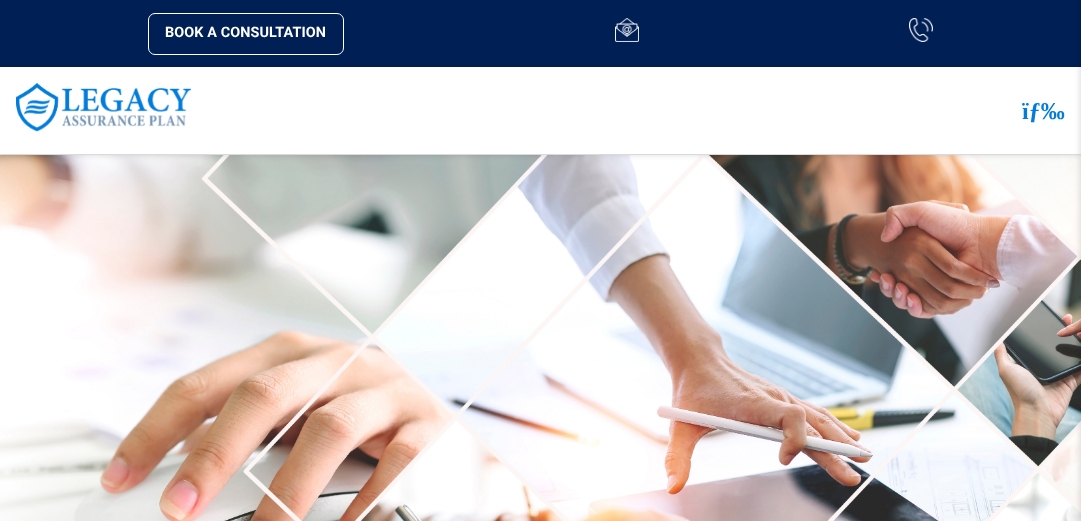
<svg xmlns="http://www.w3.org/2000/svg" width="1081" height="521">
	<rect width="100%" height="100%" fill="#FFFFFF" />
	<rect x="0" y="0" width="1081" height="67" fill="#001F54" />
	<rect x="148.5" y="13.5" width="195" height="41" rx="6.5" fill="none" stroke="#FFFFFF" />
	<text x="165" y="37" font-family="Roboto" font-size="14.4" font-weight="700" letter-spacing="0.1" fill="#FFFFFF">BOOK A CONSULTATION</text>
	<image x="615" y="18" width="24" height="24" href="assets/img1.png" />
	<image x="909" y="18" width="24" height="24" href="assets/img2.png" />
	<image x="0" y="155" width="1081" height="366" href="assets/img4.png" />
	<rect x="0" y="154" width="1081" height="1" fill="#ECECEC" />
	<rect x="0" y="69" width="1081" height="87" fill="#000000" fill-opacity="0.1" filter="blur(2.5px)" />
	<rect x="0" y="67" width="1081" height="87" fill="#FFFFFF" />
	<rect x="1079" y="0" width="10" height="521" fill="#000000" fill-opacity="0.1" filter="blur(2.5px)" />
	<image x="16" y="83" width="175" height="49" href="assets/img3.png" />
	<text x="1022" y="119" font-family="Liberation Serif" font-size="24" font-weight="700" letter-spacing="0.1" fill="#017CDA">ïƒ‰</text>
</svg>
